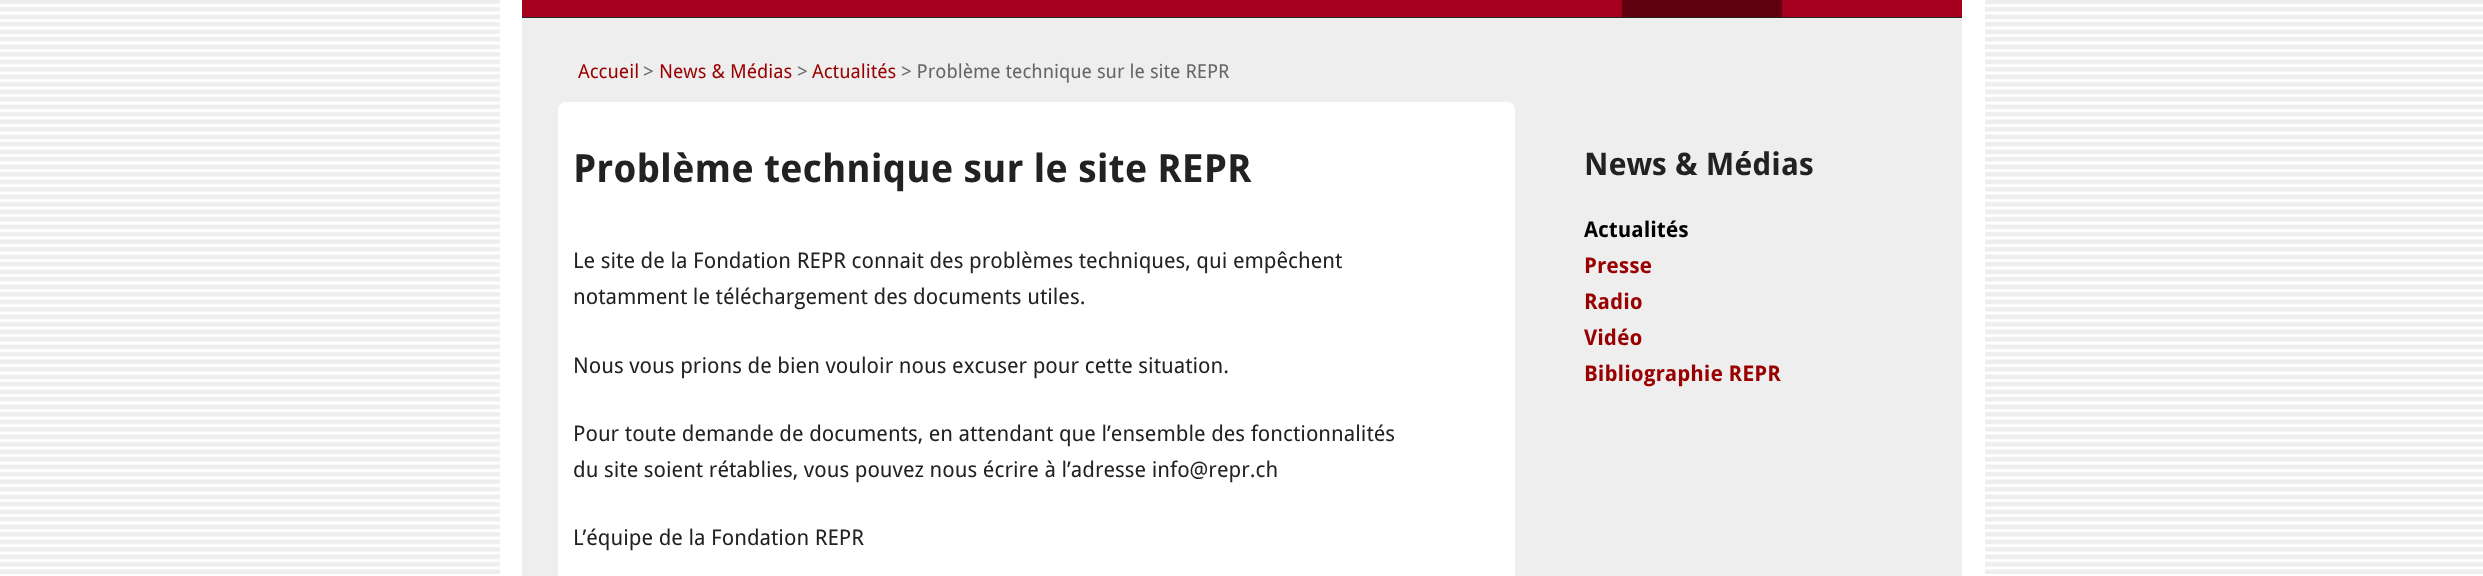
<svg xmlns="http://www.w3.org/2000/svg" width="2483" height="576">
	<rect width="100%" height="100%" fill="#FFFFFF" />
	<image x="0" y="0" width="2483" height="574" href="assets/img1.png" />
	<rect x="500" y="0" width="1485" height="574" fill="#FFFFFF" />
	<rect x="522" y="0" width="1440" height="17" fill="#A7001F" />
	<rect x="522" y="17" width="1440" height="1" fill="#222222" />
	<rect x="1622" y="0" width="160" height="17" fill="#5E000F" />
	<rect x="522" y="18" width="1440" height="558" fill="#EEEEEE" />
	<text x="578" y="78" font-family="Droid Sans" font-size="19.25" fill="#990000">Accueil</text>
	<text x="643" y="78" font-family="Droid Sans" font-size="19.25" fill="#666666">&gt;</text>
	<text x="659" y="78" font-family="Droid Sans" font-size="19.25" fill="#990000">News &amp; Médias</text>
	<text x="797" y="78" font-family="Droid Sans" font-size="19.25" fill="#666666">&gt;</text>
	<text x="812" y="78" font-family="Droid Sans" font-size="19.25" fill="#990000">Actualités</text>
	<text x="901" y="78" font-family="Droid Sans" font-size="19.25" fill="#666666">&gt; Problème technique sur le site REPR</text>
	<rect x="558" y="102" width="957" height="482" rx="8" fill="#FFFFFF" />
	<text x="573" y="182" font-family="Droid Sans" font-size="38.9" font-weight="700" fill="#222222">Problème technique sur le site REPR</text>
	<g font-family="Droid Sans" font-size="21.6" fill="#222222">
		<text x="573" y="268">Le site de la Fondation REPR connait des problèmes techniques, qui empêchent</text>
		<text x="573" y="304">notamment le téléchargement des documents utiles.</text>
		<text x="573" y="373">Nous vous prions de bien vouloir nous excuser pour cette situation.</text>
		<text x="573" y="441">Pour toute demande de documents, en attendant que l’ensemble des fonctionnalités</text>
		<text x="573" y="477">du site soient rétablies, vous pouvez nous écrire à l’adresse info@repr.ch</text>
		<text x="573" y="545">L’équipe de la Fondation REPR</text>
	</g>
	<text x="1584" y="175" font-family="Droid Sans" font-size="31.25" font-weight="700" fill="#222222">News &amp; Médias</text>
	<text x="1584" y="237" font-family="Droid Sans" font-size="21.6" font-weight="700" fill="#000000">Actualités</text>
	<g font-family="Droid Sans" font-size="21.6" font-weight="700" fill="#990000">
		<text x="1584" y="273">Presse</text>
		<text x="1584" y="309">Radio</text>
		<text x="1584" y="345">Vidéo</text>
		<text x="1584" y="381">Bibliographie REPR</text>
	</g>
</svg>
